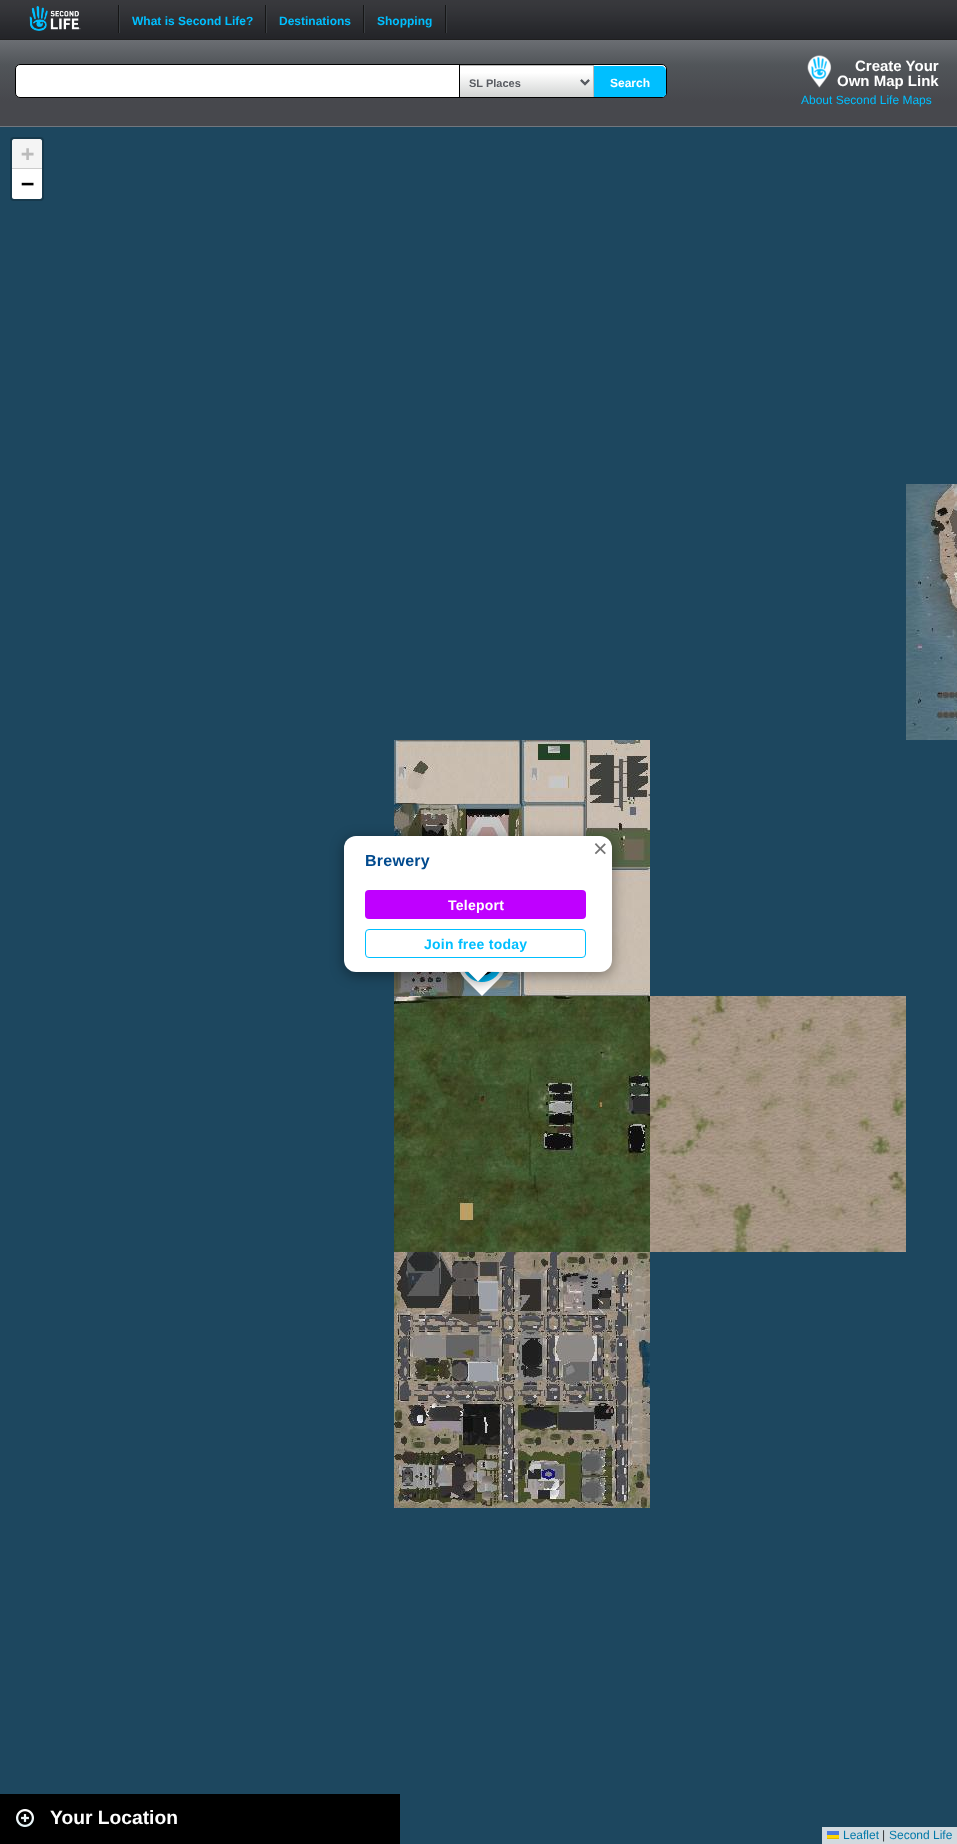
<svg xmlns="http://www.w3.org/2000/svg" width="957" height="1844">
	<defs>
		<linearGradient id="g1" gradientUnits="userSpaceOnUse" x1="0" y1="126" x2="0" y2="40"><stop offset="0.29" stop-color="#47484D" /><stop offset="0.71" stop-color="#515559" /><stop offset="1" stop-color="#6B6E73" /></linearGradient>
		<clipPath id="clip1"><rect x="16" y="65" width="650" height="32" rx="4" /></clipPath>
		<clipPath id="clip2"><rect x="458" y="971" width="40" height="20" /></clipPath>
		<clipPath id="clip3"><rect x="458" y="971" width="40" height="20" /></clipPath>
	</defs>
	<rect width="100%" height="100%" fill="#1D475F" />
	<image x="0" y="0" width="957" height="40" href="assets/img1.png" />
	<image x="29" y="6" width="52" height="25" href="assets/img2.png" />
	<rect x="119" y="5" width="1" height="28" fill="#3A3E42" />
	<rect x="118" y="5" width="1" height="28" fill="#161616" />
	<text x="132" y="25" font-family="Liberation Sans" font-size="12" font-weight="700" fill="#00BFFF">What is Second Life?</text>
	<rect x="266" y="5" width="1" height="28" fill="#3A3E42" />
	<rect x="265" y="5" width="1" height="28" fill="#161616" />
	<text x="279" y="25" font-family="Liberation Sans" font-size="12" font-weight="700" fill="#00BFFF">Destinations</text>
	<rect x="364" y="5" width="1" height="28" fill="#3A3E42" />
	<rect x="363" y="5" width="1" height="28" fill="#161616" />
	<text x="377" y="25" font-family="Liberation Sans" font-size="12" font-weight="700" fill="#00BFFF">Shopping</text>
	<rect x="446" y="5" width="1" height="28" fill="#3A3E42" />
	<rect x="445" y="5" width="1" height="28" fill="#161616" />
	<rect x="0" y="40" width="957" height="86" fill="url(#g1)" />
	<rect x="0" y="126" width="957" height="1" fill="#72777E" />
	<rect x="15.5" y="64.5" width="651" height="33" rx="4.5" fill="#FFFFFF" stroke="#000000" />
	<image x="460" y="66" width="133" height="31" href="assets/img3.png" />
	<rect x="459" y="65" width="135" height="1" fill="#BBBBBB" />
	<rect x="593" y="65" width="1" height="32" fill="#BBBBBB" />
	<rect x="459" y="65" width="1" height="32" fill="#000000" />
	<path d="M581 80L585 84L589 80" fill="none" stroke="#595C62" stroke-width="2" />
	<text x="469" y="87" font-family="Liberation Sans" font-size="11" font-weight="700" fill="#595C62">SL Places</text>
	<g clip-path="url(#clip1)">
		<path d="M594 66H661C664 66 666 68 666 71V95C666 98 664 100 661 100H594Z" fill="#00BFFF" />
	</g>
	<text x="610" y="87" font-family="Liberation Sans" font-size="12" font-weight="700" fill="#FFFFFF">Search</text>
	<image x="807" y="55" width="25" height="33" href="assets/img4.png" />
	<g font-family="Liberation Sans" font-size="15" font-weight="700" fill="#FFFFFF">
		<text x="855" y="71">Create Your</text>
		<text x="837" y="86">Own Map Link</text>
	</g>
	<text x="801" y="104" font-family="Liberation Sans" font-size="12" fill="#00BFFF">About Second Life Maps</text>
	<rect x="11" y="138" width="32" height="62" rx="3" fill="none" stroke="#17394C" stroke-width="2" />
	<path d="M14 139H40C41 139 42 140 42 141V169H12V141C12 140 13 139 14 139Z" fill="#F4F4F4" />
	<rect x="12" y="168" width="30" height="1" fill="#CCCCCC" />
	<text x="21" y="161" font-family="DejaVu Sans Mono" font-size="22" font-weight="700" fill="#BBBBBB">+</text>
	<path d="M12 169H42V197C42 198 41 199 40 199H14C13 199 12 198 12 197Z" fill="#FFFFFF" />
	<text x="21" y="191" font-family="DejaVu Sans Mono" font-size="22" font-weight="700" fill="#000000">−</text>
	<rect x="822" y="1827" width="135" height="17" fill="#D2DADF" />
	<text x="843" y="1839" font-family="Liberation Sans" font-size="12" fill="#0078A8">Leaflet</text>
	<rect x="827" y="1831" width="12" height="4" fill="#4C7BE1" />
	<rect x="827" y="1835" width="12" height="3" fill="#FFD500" />
	<rect x="827" y="1838" width="12" height="1" fill="#E0BC00" />
	<text x="882" y="1839" font-family="Liberation Sans" font-size="12" fill="#333333">|</text>
	<text x="889" y="1839" font-family="Liberation Sans" font-size="12" fill="#0078A8">Second Life</text>
	<image x="906" y="484" width="51" height="256" href="assets/img5.png" />
	<image x="394" y="740" width="256" height="256" href="assets/img6.png" />
	<image x="394" y="996" width="256" height="256" href="assets/img7.png" />
	<image x="650" y="996" width="256" height="256" href="assets/img8.png" />
	<image x="394" y="1252" width="256" height="256" href="assets/img9.png" />
	<image x="460" y="972" width="44" height="24" href="assets/img10.png" />
	<rect x="344" y="839" width="268" height="136" rx="12" fill="#000000" fill-opacity="0.4" filter="blur(7px)" />
	<rect x="344" y="836" width="268" height="136" rx="12" fill="#FFFFFF" />
	<text x="593" y="857" font-family="Liberation Sans" font-size="25" fill="#757575">×</text>
	<text x="365" y="866" font-family="Liberation Sans" font-size="16" font-weight="700" letter-spacing="0.25" fill="#014A8E">Brewery</text>
	<rect x="365" y="890" width="221" height="29" rx="4" fill="#BF00FF" />
	<text x="448" y="910" font-family="Liberation Sans" font-size="14" font-weight="700" letter-spacing="0.25" fill="#FFFFFF">Teleport</text>
	<rect x="365.5" y="929.5" width="220" height="28" rx="3.5" fill="none" stroke="#00BFFF" />
	<text x="424" y="949" font-family="Liberation Sans" font-size="14" font-weight="700" letter-spacing="0.25" fill="#00BFFF">Join free today</text>
	<g clip-path="url(#clip2)">
		<rect x="470" y="964" width="17" height="17" fill="#000000" fill-opacity="0.4" filter="blur(7px)" />
	</g>
	<g clip-path="url(#clip3)">
		<path d="M478 957.5L490 969.5L478 981.5L466 969.5Z" fill="#FFFFFF" />
	</g>
	<rect x="0" y="1794" width="400" height="50" fill="#000000" />
	<image x="16" y="1809" width="18" height="18" href="assets/img11.png" />
	<text x="50" y="1824" font-family="Liberation Sans" font-size="19.25" font-weight="700" fill="#FFFFFF">Your Location</text>
</svg>
